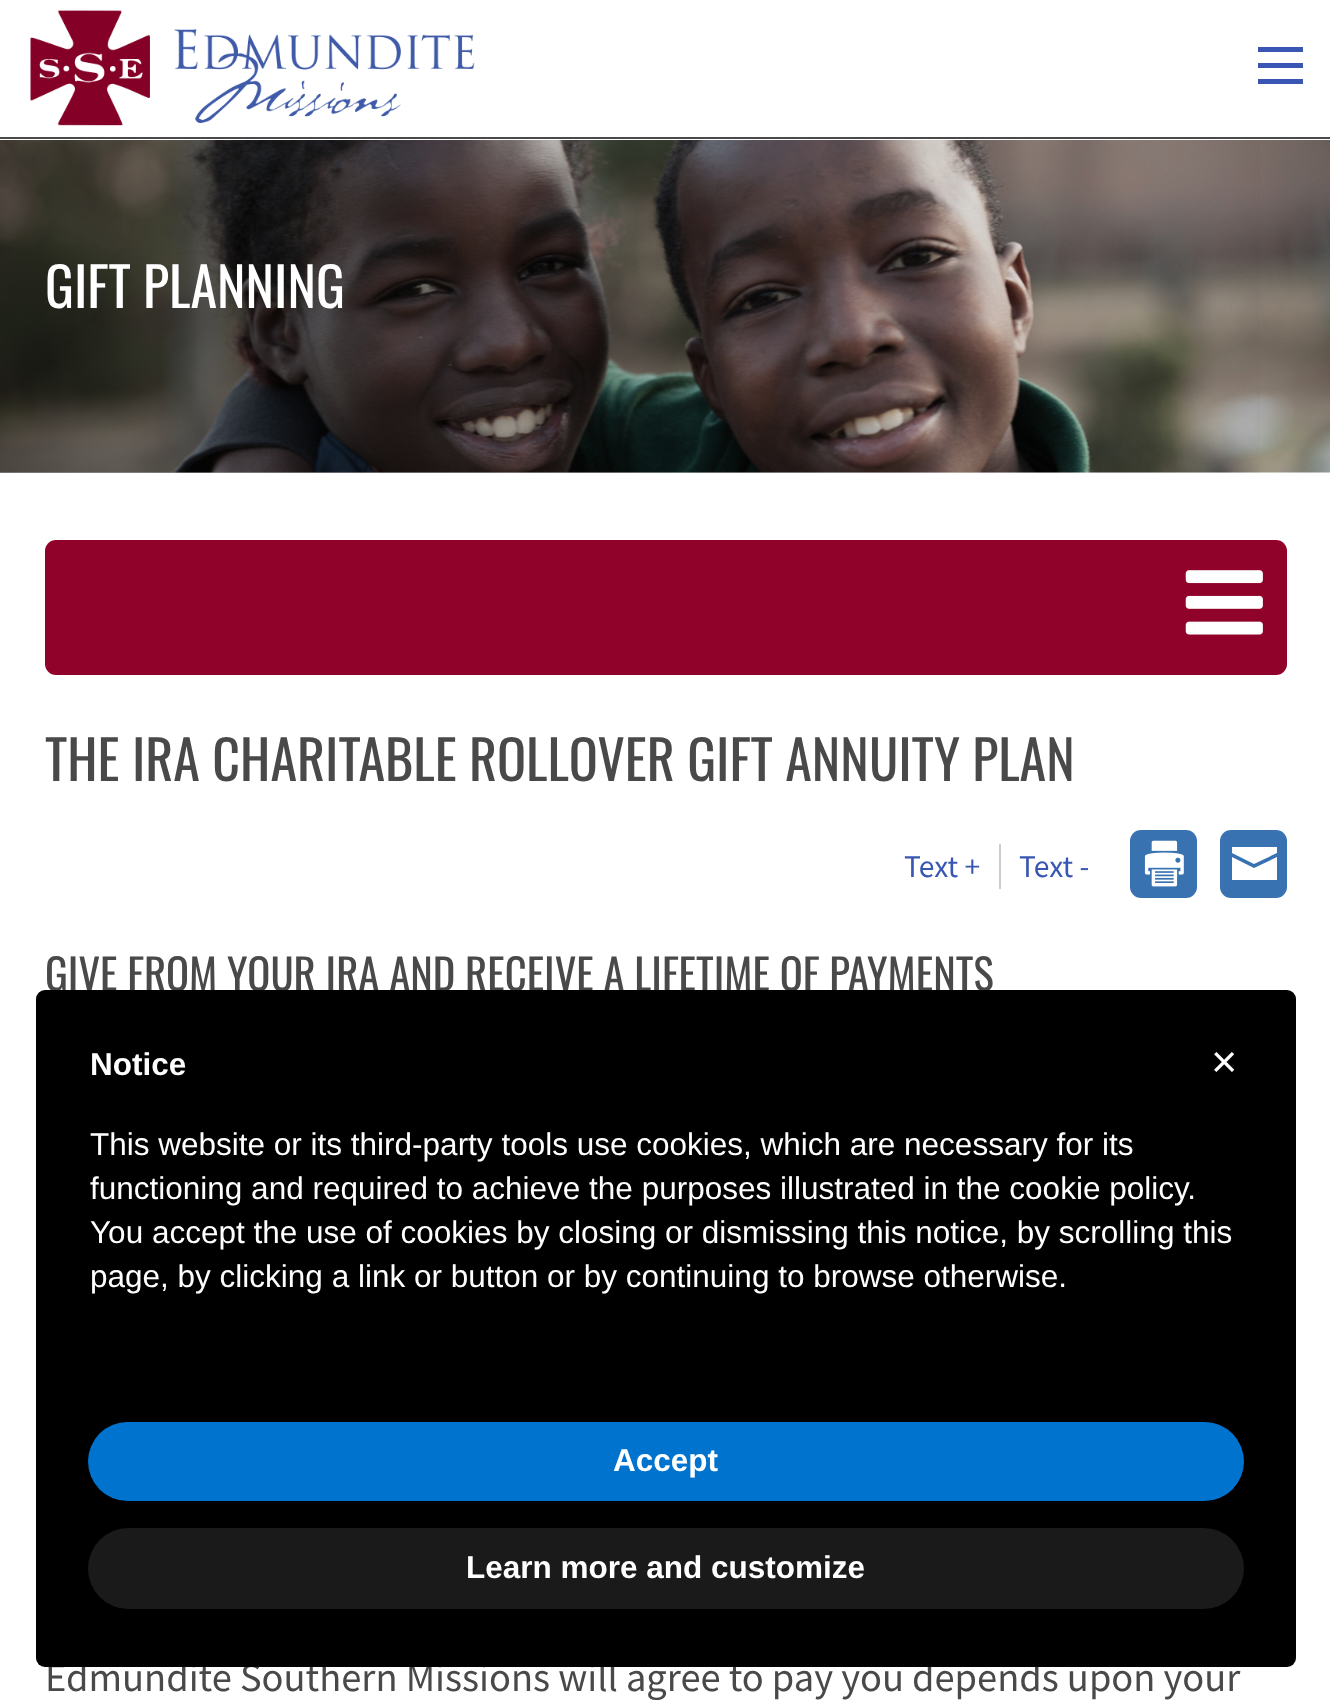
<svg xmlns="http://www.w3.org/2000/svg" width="1330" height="1702">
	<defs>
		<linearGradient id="g1" gradientUnits="userSpaceOnUse" x1="0" y1="304" x2="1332" y2="304"><stop offset="0" stop-color="#0A0A0A" stop-opacity="0.4" /><stop offset="1" stop-color="#0A0A0A" stop-opacity="0" /></linearGradient>
	</defs>
	<rect width="100%" height="100%" fill="#FFFFFF" />
	<rect x="0" y="137" width="1330" height="2" fill="#494949" />
	<image x="30" y="10" width="445" height="116" href="assets/img1.png" />
	<rect x="1258" y="79" width="45" height="5" fill="#3957B2" />
	<rect x="1258" y="63" width="45" height="5" fill="#3957B2" />
	<rect x="1258" y="47" width="45" height="5" fill="#3957B2" />
	<image x="0" y="140" width="1330" height="333" href="assets/img2.png" />
	<rect x="0" y="140" width="1260" height="333" fill="url(#g1)" />
	<text x="45" y="308" font-family="Oswald" font-size="54" fill="#FFFFFF">GIFT PLANNING</text>
	<rect x="45" y="540" width="1242" height="135" rx="11" fill="#900229" />
	<image x="1185" y="570" width="78" height="65" href="assets/img3.png" />
	<text x="45" y="781" font-family="Oswald" font-size="54" fill="#494949">THE IRA CHARITABLE ROLLOVER GIFT ANNUITY PLAN</text>
	<rect x="999" y="844" width="2" height="45" fill="#CCCCCC" />
	<g font-family="Source Sans Pro" font-size="31.5" fill="#3957B2">
		<text x="904" y="877">Text +</text>
		<text x="1019" y="877">Text -</text>
	</g>
	<rect x="1130" y="830" width="67" height="68" rx="11" fill="#3972B1" />
	<image x="1144" y="840" width="40" height="47" href="assets/img4.png" />
	<rect x="1220" y="830" width="67" height="68" rx="11" fill="#3972B1" />
	<path d="M1232 880V857L1254 868L1277 857V880ZM1232 853V847H1277V853L1254 864Z" fill="#FFFFFF" />
	<text x="45" y="991" font-family="Oswald" font-size="42.75" fill="#494949">GIVE FROM YOUR IRA AND RECEIVE A LIFETIME OF PAYMENTS</text>
	<text x="45" y="1691" font-family="Source Sans Pro" font-size="40.5" fill="#494949">Edmundite Southern Missions will agree to pay you depends upon your</text>
	<rect x="36" y="990" width="1260" height="677" rx="9" fill="#000000" />
	<text x="90" y="1075" font-family="Liberation Sans" font-size="31.5" font-weight="700" fill="#FFFFFF">Notice</text>
	<g font-family="Liberation Sans" font-size="31.5" fill="#FFFFFF">
		<text x="90" y="1155">This website or its third-party tools use cookies, which are necessary for its</text>
		<text x="90" y="1199">functioning and required to achieve the purposes illustrated in the cookie policy.</text>
		<text x="90" y="1243">You accept the use of cookies by closing or dismissing this notice, by scrolling this</text>
		<text x="90" y="1287">page, by clicking a link or button or by continuing to browse otherwise.</text>
	</g>
	<text x="1211" y="1077" font-family="Liberation Sans" font-size="45" fill="#FFFFFF">×</text>
	<rect x="88" y="1422" width="1156" height="79" rx="39.5" fill="#0073CE" />
	<text x="613" y="1471" font-family="Liberation Sans" font-size="31.5" font-weight="700" fill="#FFFFFF">Accept</text>
	<rect x="88" y="1528" width="1156" height="81" rx="40.5" fill="#1A1A1A" />
	<text x="466" y="1578" font-family="Liberation Sans" font-size="31.5" font-weight="700" fill="#FFFFFF">Learn more and customize</text>
</svg>
